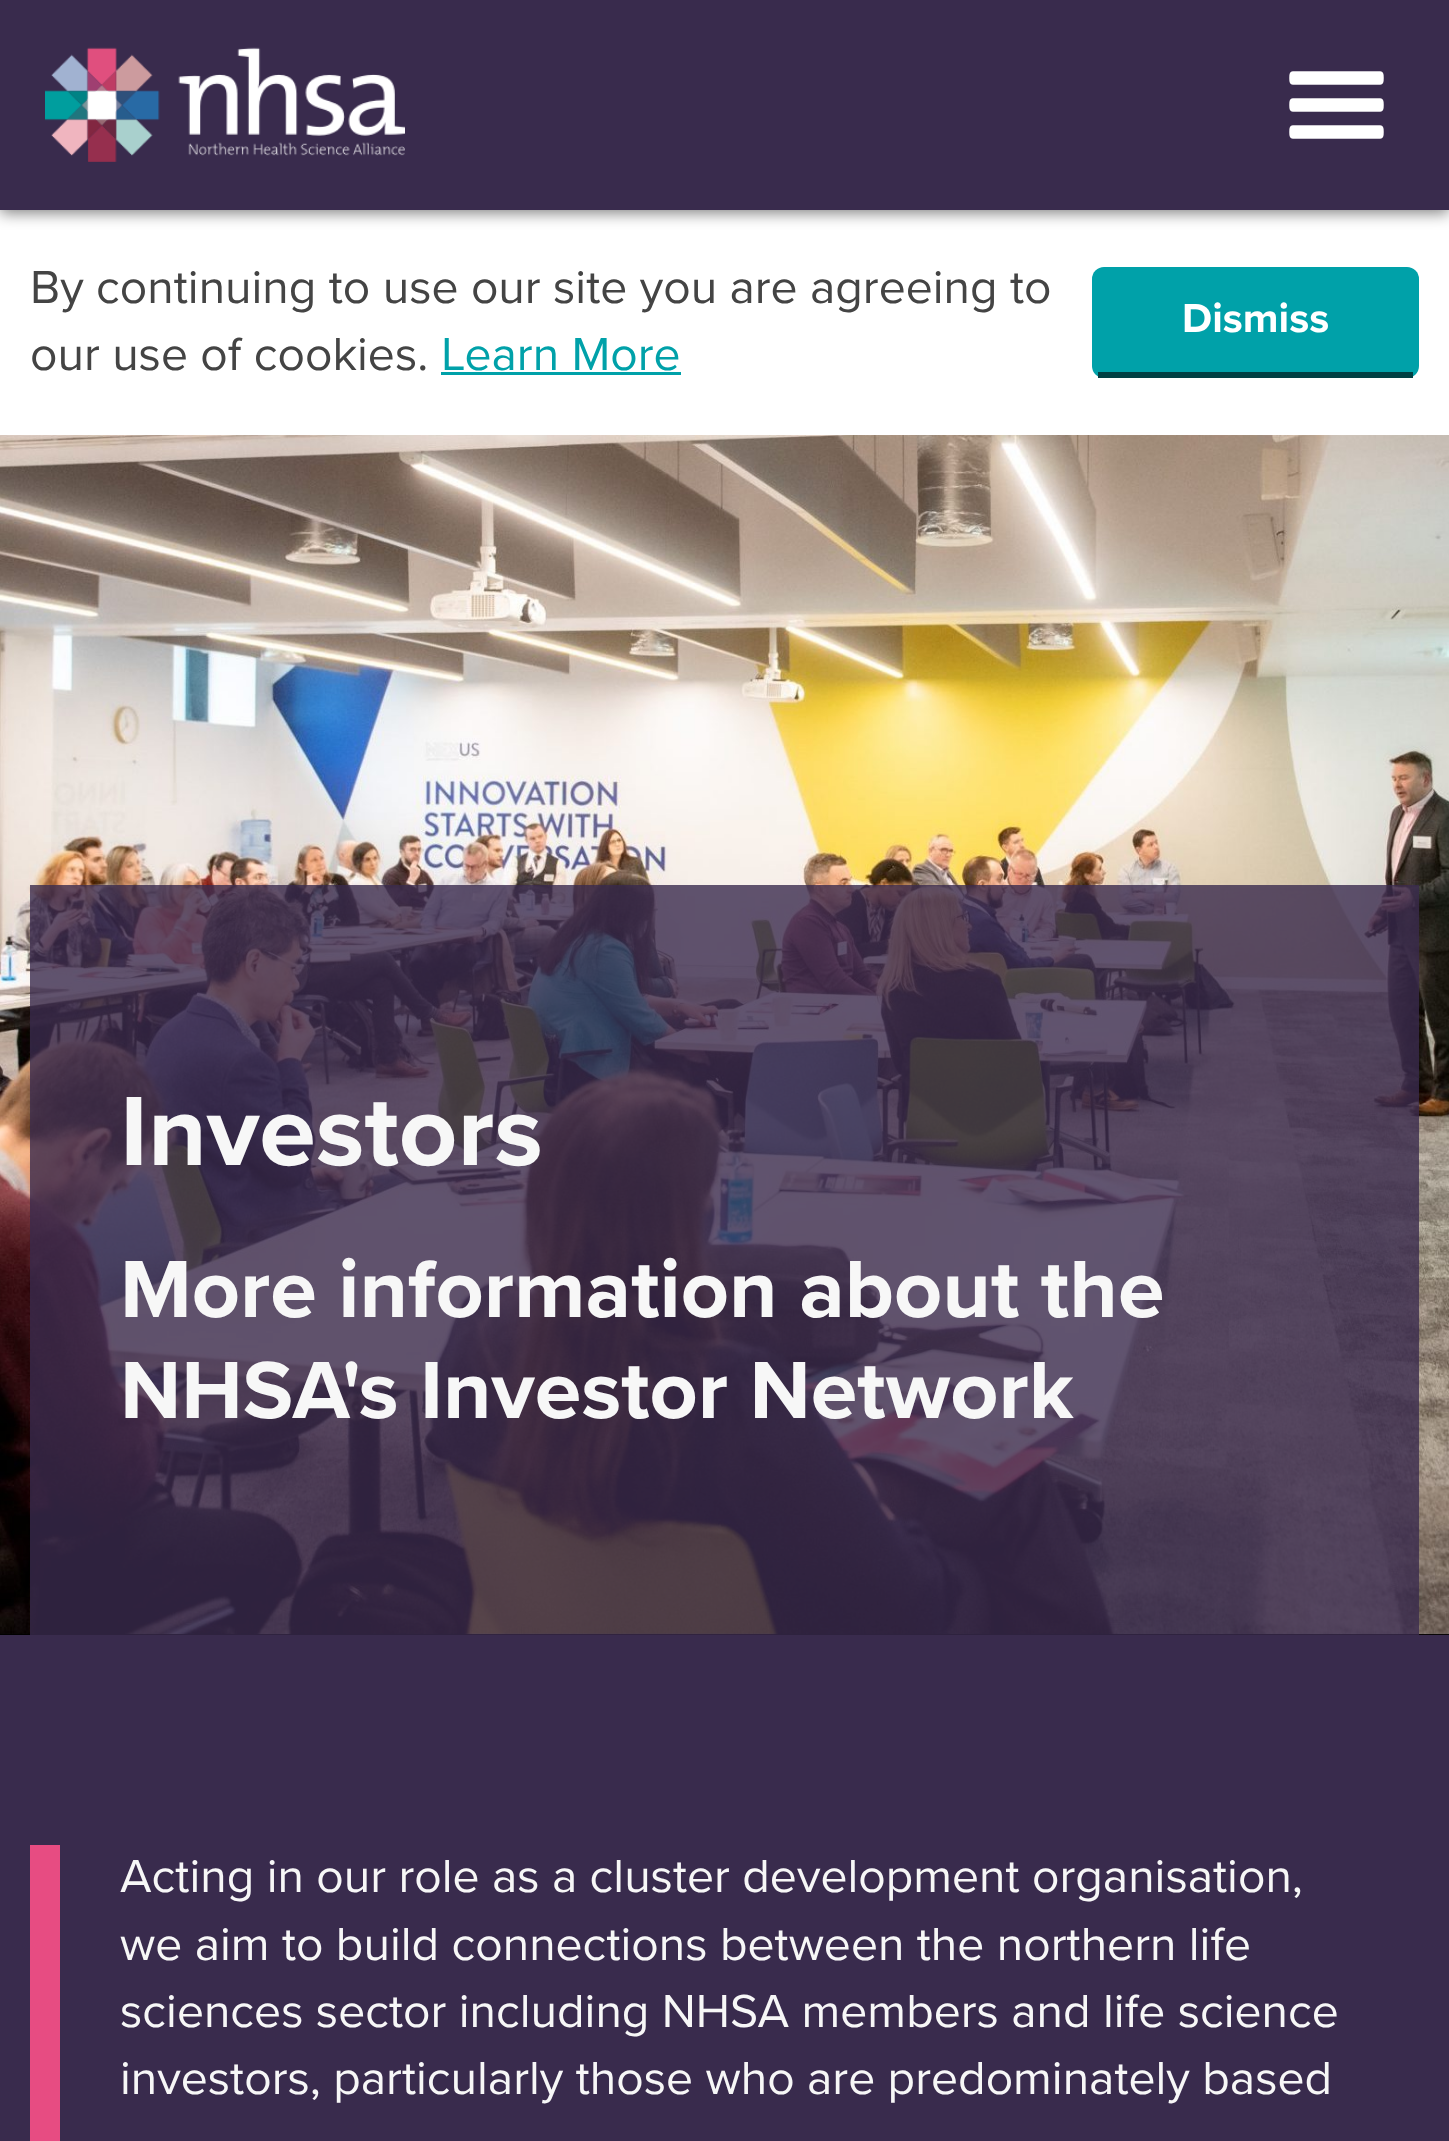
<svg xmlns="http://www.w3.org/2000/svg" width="1449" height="2141">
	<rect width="100%" height="100%" fill="#FFFFFF" />
	<rect x="0" y="3" width="1449" height="210" fill="#000000" fill-opacity="0.5" filter="blur(7.5px)" />
	<rect x="0" y="0" width="1449" height="210" fill="#392B4D" />
	<image x="45" y="47" width="360" height="115" href="assets/img1.png" />
	<image x="1289" y="71" width="95" height="68" href="assets/img2.png" />
	<g font-family="Proxima Nova" font-size="48" fill="#444444">
		<text x="30" y="303">By continuing to use our site you are agreeing to</text>
		<text x="30" y="370">our use of cookies.</text>
	</g>
	<text x="441" y="370" font-family="Proxima Nova" font-size="48" fill="#00A1A9">Learn More</text>
	<rect x="441" y="372" width="240" height="3" fill="#00A1A9" />
	<rect x="1092" y="267" width="327" height="111" rx="12" fill="#00A1A9" />
	<rect x="1098" y="372" width="315" height="6" fill="#004043" />
	<text x="1182" y="332" font-family="Proxima Nova" font-size="42" font-weight="700" fill="#FFFFFF">Dismiss</text>
	<image x="0" y="435" width="1449" height="1200" href="assets/img3.png" />
	<rect x="30" y="885" width="1389" height="750" fill="#392B4D" fill-opacity="0.8" />
	<text x="120" y="1165" font-family="Proxima Nova" font-size="102" font-weight="700" fill="#F7F7F7">Investors</text>
	<g font-family="Proxima Nova" font-size="84" font-weight="700" fill="#F7F7F7">
		<text x="120" y="1317">More information about the</text>
		<text x="120" y="1418">NHSA's Investor Network</text>
	</g>
	<rect x="0" y="1635" width="1449" height="506" fill="#392B4D" />
	<rect x="30" y="1845" width="30" height="296" fill="#E74C82" />
	<g font-family="Proxima Nova" font-size="48" fill="#F7F7F7">
		<text x="120" y="1892">Acting in our role as a cluster development organisation,</text>
		<text x="120" y="1960">we aim to build connections between the northern life</text>
		<text x="120" y="2027">sciences sector including NHSA members and life science</text>
		<text x="120" y="2094">investors, particularly those who are predominately based</text>
	</g>
</svg>
